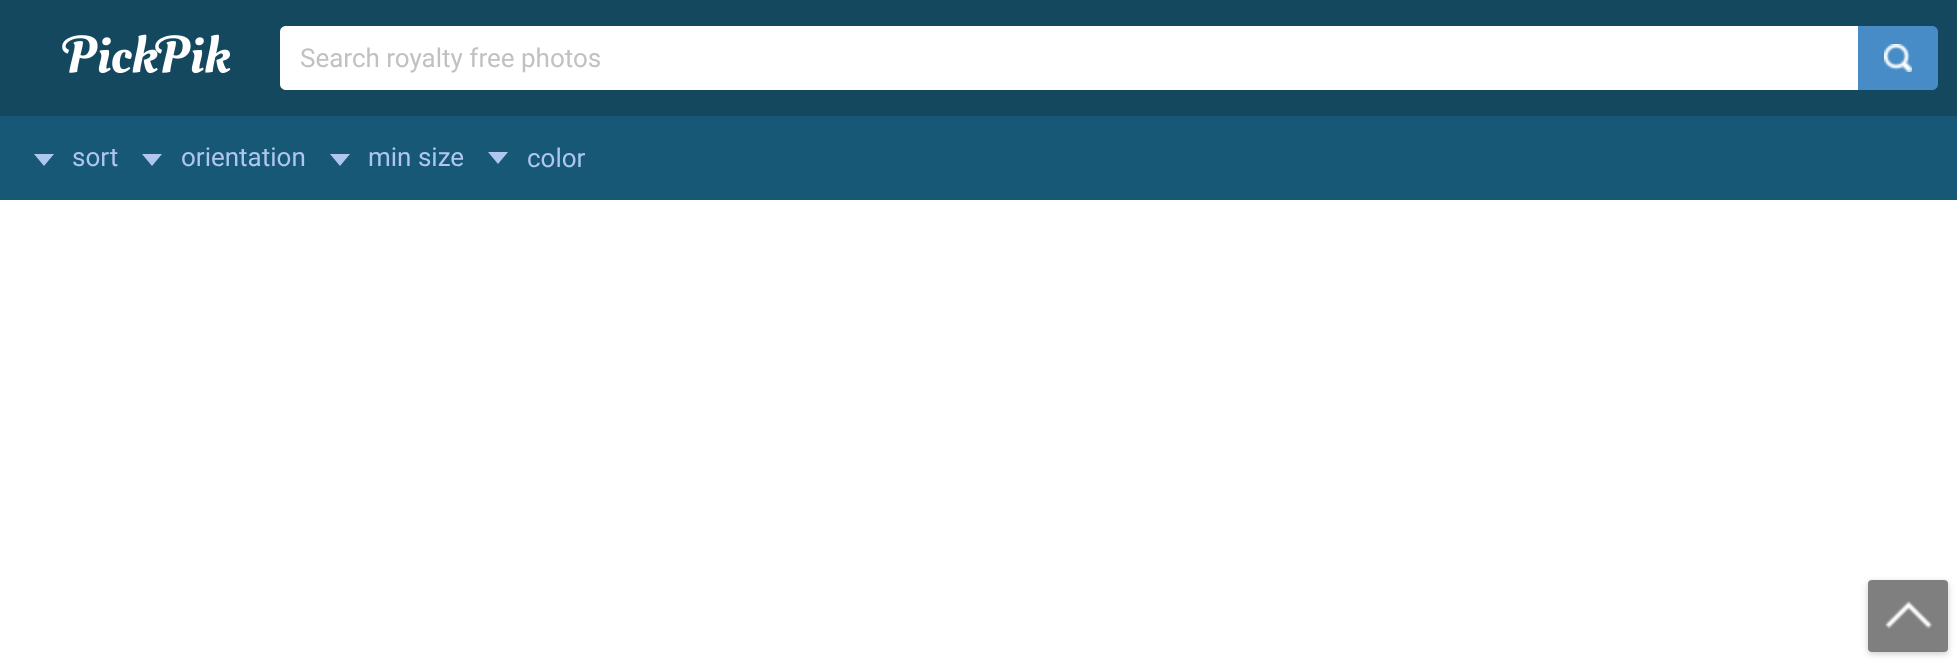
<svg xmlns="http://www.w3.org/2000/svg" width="1957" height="671">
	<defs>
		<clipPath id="clip1"><path d="M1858 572H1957V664H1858ZM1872 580H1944C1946 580 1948 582 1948 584V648C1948 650 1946 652 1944 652H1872C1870 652 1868 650 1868 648V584C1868 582 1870 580 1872 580Z" clip-rule="evenodd" /></clipPath>
	</defs>
	<rect width="100%" height="100%" fill="#FFFFFF" />
	<rect x="0" y="0" width="1957" height="116" fill="#14485F" />
	<image x="62" y="34" width="169" height="40" href="assets/img1.png" />
	<path d="M286 26H1928C1933.5 26 1938 30.5 1938 36V80C1938 85.5 1933.5 90 1928 90H286C282.5 90 280 87.5 280 84V32C280 28.5 282.5 26 286 26Z" fill="#FFFFFF" />
	<text x="300" y="67" font-family="Roboto" font-size="26" fill="#C1C1C1">Search royalty free photos</text>
	<path d="M1858 26H1932C1935.5 26 1938 28.5 1938 32V84C1938 87.5 1935.5 90 1932 90H1858Z" fill="#478CC6" />
	<image x="1884" y="44" width="28" height="28" href="assets/img2.png" />
	<rect x="0" y="116" width="1957" height="84" fill="#165875" />
	<path d="M34 154H54L44 166Z" fill="#AFC7EE" />
	<text x="72" y="166" font-family="Roboto" font-size="26" fill="#AFC7EE">sort</text>
	<path d="M142 154H162L152 166Z" fill="#AFC7EE" />
	<text x="181" y="166" font-family="Roboto" font-size="26" fill="#AFC7EE">orientation</text>
	<path d="M330 154H350L340 166Z" fill="#AFC7EE" />
	<text x="368" y="166" font-family="Roboto" font-size="26" fill="#AFC7EE">min size</text>
	<path d="M488 152H508L498 164Z" fill="#AFC7EE" />
	<text x="527" y="167" font-family="Roboto" font-size="26" fill="#AFC7EE">color</text>
	<g clip-path="url(#clip1)">
		<rect x="1868" y="582" width="80" height="72" rx="4" fill="#000000" fill-opacity="0.2" filter="blur(3px)" />
	</g>
	<rect x="1868" y="580" width="80" height="72" rx="4" fill="#000000" fill-opacity="0.5" />
	<image x="1885" y="601" width="47" height="28" href="assets/img3.png" />
</svg>
